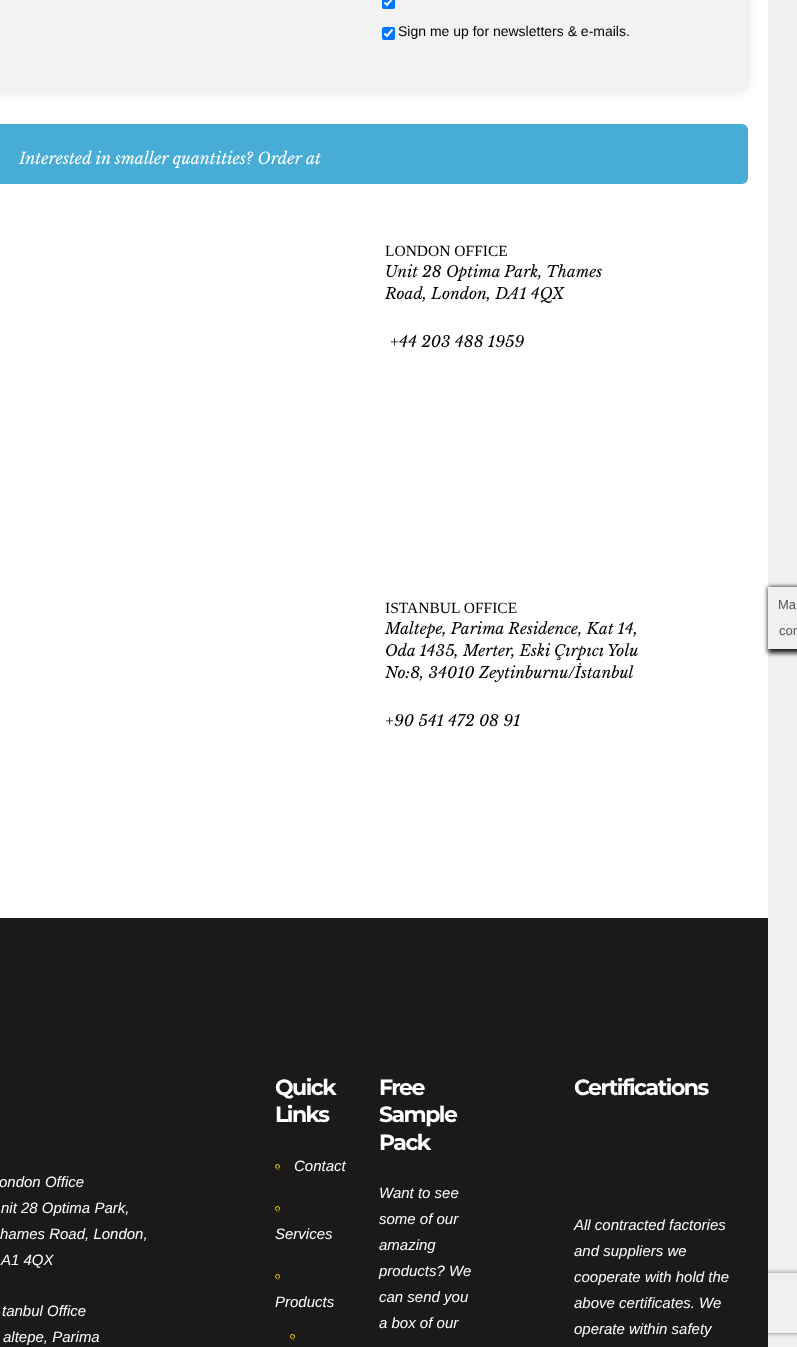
<svg xmlns="http://www.w3.org/2000/svg" width="797" height="1347">
	<defs>
		<clipPath id="clip1"><path d="M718 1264H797V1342H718ZM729 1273H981C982 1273 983 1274 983 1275V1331C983 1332 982 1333 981 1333H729C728 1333 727 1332 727 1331V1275C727 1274 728 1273 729 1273Z" clip-rule="evenodd" /></clipPath>
		<clipPath id="clip2"><path d="M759 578H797V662H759ZM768 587H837V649H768Z" clip-rule="evenodd" /></clipPath>
	</defs>
	<rect width="100%" height="100%" fill="#F0F0F0" />
	<rect x="0" y="0" width="768" height="918" fill="#FFFFFF" />
	<rect x="-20" y="-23" width="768" height="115" rx="8" fill="#000000" fill-opacity="0.1" filter="blur(5px)" />
	<rect x="-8" y="-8" width="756" height="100" rx="8" fill="#F2F2F2" />
	<rect x="382" y="-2" width="13" height="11" rx="2" fill="#0075FF" />
	<path d="M384.5 2.5L387 5L392.5-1.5" fill="none" stroke="#FFFFFF" stroke-width="2.1" />
	<rect x="382" y="27" width="13" height="13" rx="2" fill="#0075FF" />
	<path d="M384.5 33.5L387 36L392.5 29.5" fill="none" stroke="#FFFFFF" stroke-width="2.1" />
	<text x="398" y="36" font-family="Liberation Sans" font-size="14" fill="#000000">Sign me up for newsletters &amp; e-mails.</text>
	<rect x="-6" y="124" width="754" height="60" rx="6" fill="#47ADD7" />
	<text x="19" y="164" font-family="Libre Baskerville" font-size="16" font-style="italic" fill="#FFFFFF">Interested in smaller quantities? Order at</text>
	<text x="385" y="256" font-family="Liberation Serif" font-size="15.5" fill="#000000">LONDON OFFICE</text>
	<g font-family="Libre Baskerville" font-size="15.5" font-style="italic" fill="#000000">
		<text x="385" y="277">Unit 28 Optima Park, Thames</text>
		<text x="385" y="299">Road, London, DA1 4QX</text>
		<text x="390" y="347">+44 203 488 1959</text>
	</g>
	<text x="385" y="613" font-family="Liberation Serif" font-size="15.5" fill="#000000">ISTANBUL OFFICE</text>
	<g font-family="Libre Baskerville" font-size="15.5" font-style="italic" fill="#000000">
		<text x="385" y="634">Maltepe, Parima Residence, Kat 14,</text>
		<text x="385" y="656">Oda 1435, Merter, Eski Çırpıcı Yolu</text>
		<text x="385" y="678">No:8, 34010 Zeytinburnu/İstanbul</text>
		<text x="385" y="726">+90 541 472 08 91</text>
	</g>
	<g clip-path="url(#clip1)">
		<rect x="727" y="1273" width="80" height="60" rx="2" fill="#808080" filter="blur(2.5px)" />
	</g>
	<rect x="0" y="918" width="768" height="429" fill="#1B1A18" />
	<g font-family="Liberation Sans" font-size="15" font-style="italic" fill="#FFFFFF">
		<text x="-1" y="1187">ondon Office</text>
		<text x="1" y="1213">nit 28 Optima Park,</text>
		<text x="0" y="1239">hames Road, London,</text>
		<text x="1" y="1265">A1 4QX</text>
		<text x="2" y="1316">tanbul Office</text>
		<text x="3" y="1342">altepe, Parima</text>
	</g>
	<g font-family="Montserrat" font-size="22" font-weight="700" letter-spacing="-1.5" fill="#FFFFFF">
		<text x="275" y="1095">Quick</text>
		<text x="275" y="1122">Links</text>
	</g>
	<circle cx="277.5" cy="1166.5" r="2" fill="none" stroke="#FFD401" />
	<text x="276" y="1171" font-family="Liberation Sans" font-size="7" font-style="italic" fill="#554912">●</text>
	<text x="294" y="1171" font-family="Liberation Sans" font-size="15" font-style="italic" fill="#FFFFFF">Contact</text>
	<circle cx="277.5" cy="1208.5" r="2" fill="none" stroke="#FFD401" />
	<text x="276" y="1213" font-family="Liberation Sans" font-size="7" font-style="italic" fill="#554912">●</text>
	<text x="275" y="1239" font-family="Liberation Sans" font-size="15" font-style="italic" fill="#FFFFFF">Services</text>
	<circle cx="277.5" cy="1276.5" r="2" fill="none" stroke="#FFD401" />
	<text x="276" y="1281" font-family="Liberation Sans" font-size="7" font-style="italic" fill="#554912">●</text>
	<text x="275" y="1307" font-family="Liberation Sans" font-size="15" font-style="italic" fill="#FFFFFF">Products</text>
	<circle cx="292.5" cy="1336.5" r="2" fill="none" stroke="#FFD401" />
	<text x="291" y="1341" font-family="Liberation Sans" font-size="7" font-style="italic" fill="#554912">●</text>
	<g font-family="Montserrat" font-size="22" font-weight="700" letter-spacing="-1.5" fill="#FFFFFF">
		<text x="379" y="1095">Free</text>
		<text x="379" y="1122">Sample</text>
		<text x="379" y="1150">Pack</text>
	</g>
	<g font-family="Liberation Sans" font-size="15" font-style="italic" fill="#FFFFFF">
		<text x="379" y="1198">Want to see</text>
		<text x="379" y="1224">some of our</text>
		<text x="379" y="1250">amazing</text>
		<text x="379" y="1276">products? We</text>
		<text x="379" y="1302">can send you</text>
		<text x="379" y="1328">a box of our</text>
	</g>
	<text x="574" y="1095" font-family="Montserrat" font-size="22" font-weight="700" letter-spacing="-1.5" fill="#FFFFFF">Certifications</text>
	<g font-family="Liberation Sans" font-size="15" font-style="italic" fill="#FFFFFF">
		<text x="574" y="1230">All contracted factories</text>
		<text x="574" y="1256">and suppliers we</text>
		<text x="574" y="1282">cooperate with hold the</text>
		<text x="574" y="1308">above certificates. We</text>
		<text x="574" y="1334">operate within safety</text>
	</g>
	<g clip-path="url(#clip2)">
		<rect x="768" y="587" width="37" height="66" fill="#161616" filter="blur(2.5px)" />
	</g>
	<g font-family="Liberation Sans" font-size="13" fill="#565656">
		<text x="778" y="609">Ma</text>
		<text x="779" y="635">con</text>
	</g>
</svg>
